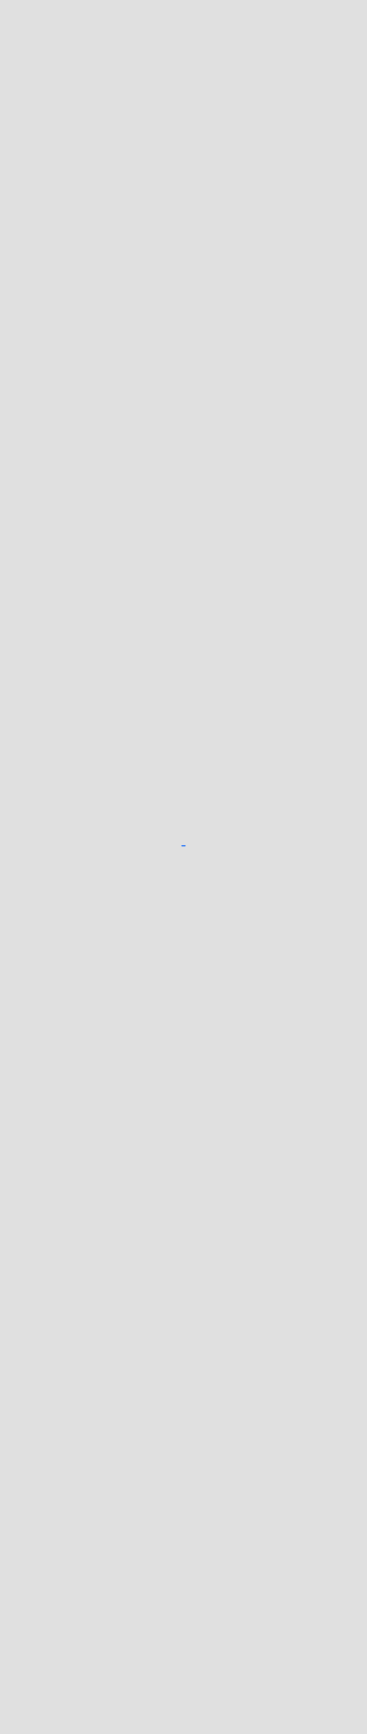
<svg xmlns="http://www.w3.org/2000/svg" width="367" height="1734">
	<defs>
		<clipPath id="clip1"><rect x="161" y="845" width="22" height="44" /></clipPath>
		<clipPath id="clip2"><rect x="183" y="845" width="23" height="44" /></clipPath>
	</defs>
	<rect width="100%" height="100%" fill="#E0E0E0" />
	<g clip-path="url(#clip1)">
		<path d="M181.5 845.5C209.5 843 213.5 886 185.5 888.5" fill="none" stroke="#4285F4" stroke-width="2" />
	</g>
	<g clip-path="url(#clip2)">
		<path d="M181.5 888.5C153.5 886 157.5 843 185.5 845.5" fill="none" stroke="#4285F4" stroke-width="2" />
	</g>
</svg>
